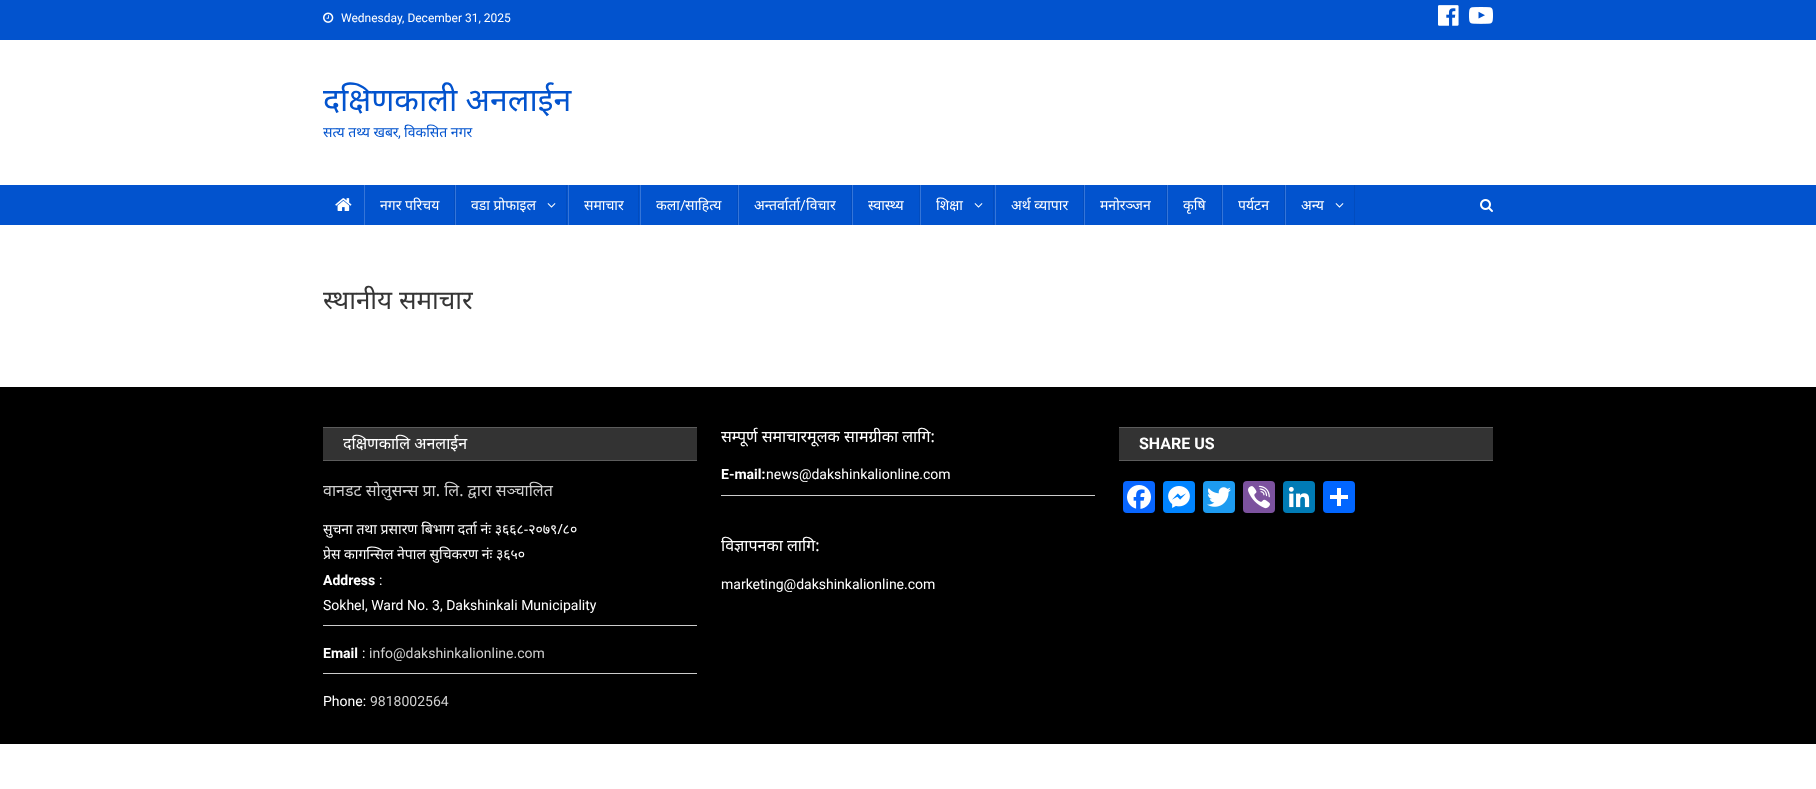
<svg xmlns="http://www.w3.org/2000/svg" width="1816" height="789">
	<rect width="100%" height="100%" fill="#FFFFFF" />
	<rect x="0" y="0" width="1816" height="40" fill="#0253CE" />
	<image x="323" y="12" width="11" height="11" href="assets/img1.png" />
	<text x="341" y="22" font-family="Roboto" font-size="12" fill="#FFFFFF">Wednesday, December 31, 2025</text>
	<image x="1438" y="5" width="21" height="21" href="assets/img2.png" />
	<image x="1469" y="7" width="24" height="17" href="assets/img3.png" />
	<text x="323" y="111" font-family="Noto Sans" font-size="32" fill="#0253CE">दक्षिणकाली अनलाईन</text>
	<text x="323" y="137" font-family="Noto Sans" font-size="14" fill="#0253CE">सत्य तथ्य खबर</text>
	<text x="398" y="137" font-family="Roboto" font-size="14" fill="#0253CE">,</text>
	<text x="404" y="137" font-family="Noto Sans" font-size="14" fill="#0253CE">विकसित नगर</text>
	<rect x="0" y="185" width="1816" height="40" fill="#0253CE" />
	<image x="335" y="198" width="17" height="13" href="assets/img4.png" />
	<rect x="454" y="185" width="1" height="40" fill="#024CBE" />
	<rect x="364" y="185" width="1" height="40" fill="#3575D8" />
	<text x="380" y="210" font-family="Noto Sans" font-size="14" fill="#FFFFFF">नगर परिचय</text>
	<rect x="566" y="185" width="1" height="40" fill="#024CBE" />
	<rect x="455" y="185" width="1" height="40" fill="#3575D8" />
	<text x="471" y="210" font-family="Noto Sans" font-size="14" fill="#FFFFFF">वडा प्रोफाइल</text>
	<image x="547" y="203" width="9" height="5" href="assets/img5.png" />
	<rect x="638" y="185" width="1" height="40" fill="#024CBE" />
	<rect x="568" y="185" width="1" height="40" fill="#3575D8" />
	<text x="584" y="210" font-family="Noto Sans" font-size="14" fill="#FFFFFF">समाचार</text>
	<rect x="737" y="185" width="1" height="40" fill="#024CBE" />
	<rect x="640" y="185" width="1" height="40" fill="#3575D8" />
	<text x="656" y="210" font-family="Noto Sans" font-size="14" fill="#FFFFFF">कला</text>
	<text x="680" y="210" font-family="Roboto" font-size="14" fill="#FFFFFF">/</text>
	<text x="685" y="210" font-family="Noto Sans" font-size="14" fill="#FFFFFF">साहित्य</text>
	<rect x="851" y="185" width="1" height="40" fill="#024CBE" />
	<rect x="738" y="185" width="1" height="40" fill="#3575D8" />
	<text x="754" y="210" font-family="Noto Sans" font-size="14" fill="#FFFFFF">अन्तर्वार्ता</text>
	<text x="800" y="210" font-family="Roboto" font-size="14" fill="#FFFFFF">/</text>
	<text x="806" y="210" font-family="Noto Sans" font-size="14" fill="#FFFFFF">विचार</text>
	<rect x="919" y="185" width="1" height="40" fill="#024CBE" />
	<rect x="852" y="185" width="1" height="40" fill="#3575D8" />
	<text x="868" y="210" font-family="Noto Sans" font-size="14" fill="#FFFFFF">स्वास्थ्य</text>
	<rect x="993" y="185" width="1" height="40" fill="#024CBE" />
	<rect x="920" y="185" width="1" height="40" fill="#3575D8" />
	<text x="936" y="210" font-family="Noto Sans" font-size="14" fill="#FFFFFF">शिक्षा</text>
	<image x="974" y="203" width="9" height="5" href="assets/img5.png" />
	<rect x="1083" y="185" width="1" height="40" fill="#024CBE" />
	<rect x="995" y="185" width="1" height="40" fill="#3575D8" />
	<text x="1011" y="210" font-family="Noto Sans" font-size="14" fill="#FFFFFF">अर्थ व्यापार</text>
	<rect x="1166" y="185" width="1" height="40" fill="#024CBE" />
	<rect x="1084" y="185" width="1" height="40" fill="#3575D8" />
	<text x="1100" y="210" font-family="Noto Sans" font-size="14" fill="#FFFFFF">मनोरञ्जन</text>
	<rect x="1221" y="185" width="1" height="40" fill="#024CBE" />
	<rect x="1167" y="185" width="1" height="40" fill="#3575D8" />
	<text x="1183" y="210" font-family="Noto Sans" font-size="14" fill="#FFFFFF">कृषि</text>
	<rect x="1284" y="185" width="1" height="40" fill="#024CBE" />
	<rect x="1222" y="185" width="1" height="40" fill="#3575D8" />
	<text x="1238" y="210" font-family="Noto Sans" font-size="14" fill="#FFFFFF">पर्यटन</text>
	<rect x="1354" y="185" width="1" height="40" fill="#024CBE" />
	<rect x="1285" y="185" width="1" height="40" fill="#3575D8" />
	<text x="1301" y="210" font-family="Noto Sans" font-size="14" fill="#FFFFFF">अन्य</text>
	<image x="1335" y="203" width="9" height="5" href="assets/img5.png" />
	<image x="1480" y="199" width="13" height="13" href="assets/img6.png" />
	<text x="323" y="309" font-family="Noto Sans" font-size="26" fill="#353535">स्थानीय समाचार</text>
	<rect x="0" y="387" width="1816" height="357" fill="#000000" />
	<rect x="323" y="428" width="374" height="32" fill="#333333" />
	<rect x="323" y="427" width="374" height="1" fill="#5C5C5C" />
	<rect x="323" y="460" width="374" height="1" fill="#5C5C5C" />
	<text x="343" y="449" font-family="Noto Sans" font-size="16" fill="#FFFFFF">दक्षिणकालि अनलाईन</text>
	<text x="323" y="496" font-family="Noto Sans" font-size="16" fill="#CFCFCF">वानडट सोलुसन्स प्रा. लि. द्वारा सञ्चालित</text>
	<g font-family="Noto Sans" font-size="14" fill="#FFFFFF">
		<text x="323" y="534">सुचना तथा प्रसारण बिभाग दर्ता नंः ३६६८-२०७९/८०</text>
		<text x="323" y="559">प्रेस कागन्सिल नेपाल सुचिकरण नंः ३६५०</text>
	</g>
	<text x="323" y="585" font-family="Roboto" font-size="14" font-weight="700" fill="#FFFFFF">Address</text>
	<g font-family="Roboto" font-size="14" fill="#FFFFFF">
		<text x="379" y="585">:</text>
		<text x="323" y="610">Sokhel, Ward No. 3, Dakshinkali Municipality</text>
	</g>
	<rect x="323" y="625" width="374" height="1" fill="#CCCCCC" />
	<text x="323" y="658" font-family="Roboto" font-size="14" font-weight="700" fill="#FFFFFF">Email</text>
	<text x="362" y="658" font-family="Roboto" font-size="14" fill="#FFFFFF">:</text>
	<text x="369" y="658" font-family="Roboto" font-size="14" fill="#CFCFCF">info@dakshinkalionline.com</text>
	<rect x="323" y="673" width="374" height="1" fill="#CCCCCC" />
	<text x="323" y="706" font-family="Roboto" font-size="14" fill="#FFFFFF">Phone:</text>
	<text x="370" y="706" font-family="Roboto" font-size="14" fill="#CFCFCF">9818002564</text>
	<text x="721" y="442" font-family="Noto Sans" font-size="16" fill="#FFFFFF">सम्पूर्ण समाचारमूलक सामग्रीका लागि:</text>
	<text x="721" y="479" font-family="Roboto" font-size="14" font-weight="700" fill="#FFFFFF">E-mail:</text>
	<text x="766" y="479" font-family="Roboto" font-size="14" fill="#FFFFFF">news@dakshinkalionline.com</text>
	<rect x="721" y="495" width="374" height="1" fill="#CCCCCC" />
	<text x="721" y="551" font-family="Noto Sans" font-size="16" fill="#FFFFFF">विज्ञापनका लागि:</text>
	<text x="721" y="589" font-family="Roboto" font-size="14" fill="#FFFFFF">marketing@dakshinkalionline.com </text>
	<rect x="1119" y="428" width="374" height="32" fill="#333333" />
	<rect x="1119" y="427" width="374" height="1" fill="#5C5C5C" />
	<rect x="1119" y="460" width="374" height="1" fill="#5C5C5C" />
	<text x="1139" y="449" font-family="Roboto" font-size="16" font-weight="700" fill="#FFFFFF">SHARE US</text>
	<rect x="1123" y="481" width="32" height="32" rx="4" fill="#0866FF" />
	<image x="1127" y="485" width="24" height="24" href="assets/img7.png" />
	<rect x="1163" y="481" width="32" height="32" rx="4" fill="#0084FF" />
	<image x="1168" y="486" width="22" height="22" href="assets/img8.png" />
	<rect x="1203" y="481" width="32" height="32" rx="4" fill="#1D9BF0" />
	<image x="1207" y="487" width="24" height="20" href="assets/img9.png" />
	<rect x="1243" y="481" width="32" height="32" rx="4" fill="#7C529E" />
	<image x="1248" y="485" width="22" height="24" href="assets/img10.png" />
	<rect x="1283" y="481" width="32" height="32" rx="4" fill="#007BB5" />
	<image x="1288" y="486" width="22" height="22" href="assets/img11.png" />
	<rect x="1323" y="481" width="32" height="32" rx="4" fill="#0166FF" />
	<rect x="1337" y="488" width="4" height="18" fill="#FFFFFF" />
	<rect x="1330" y="495" width="18" height="4" fill="#FFFFFF" />
</svg>
